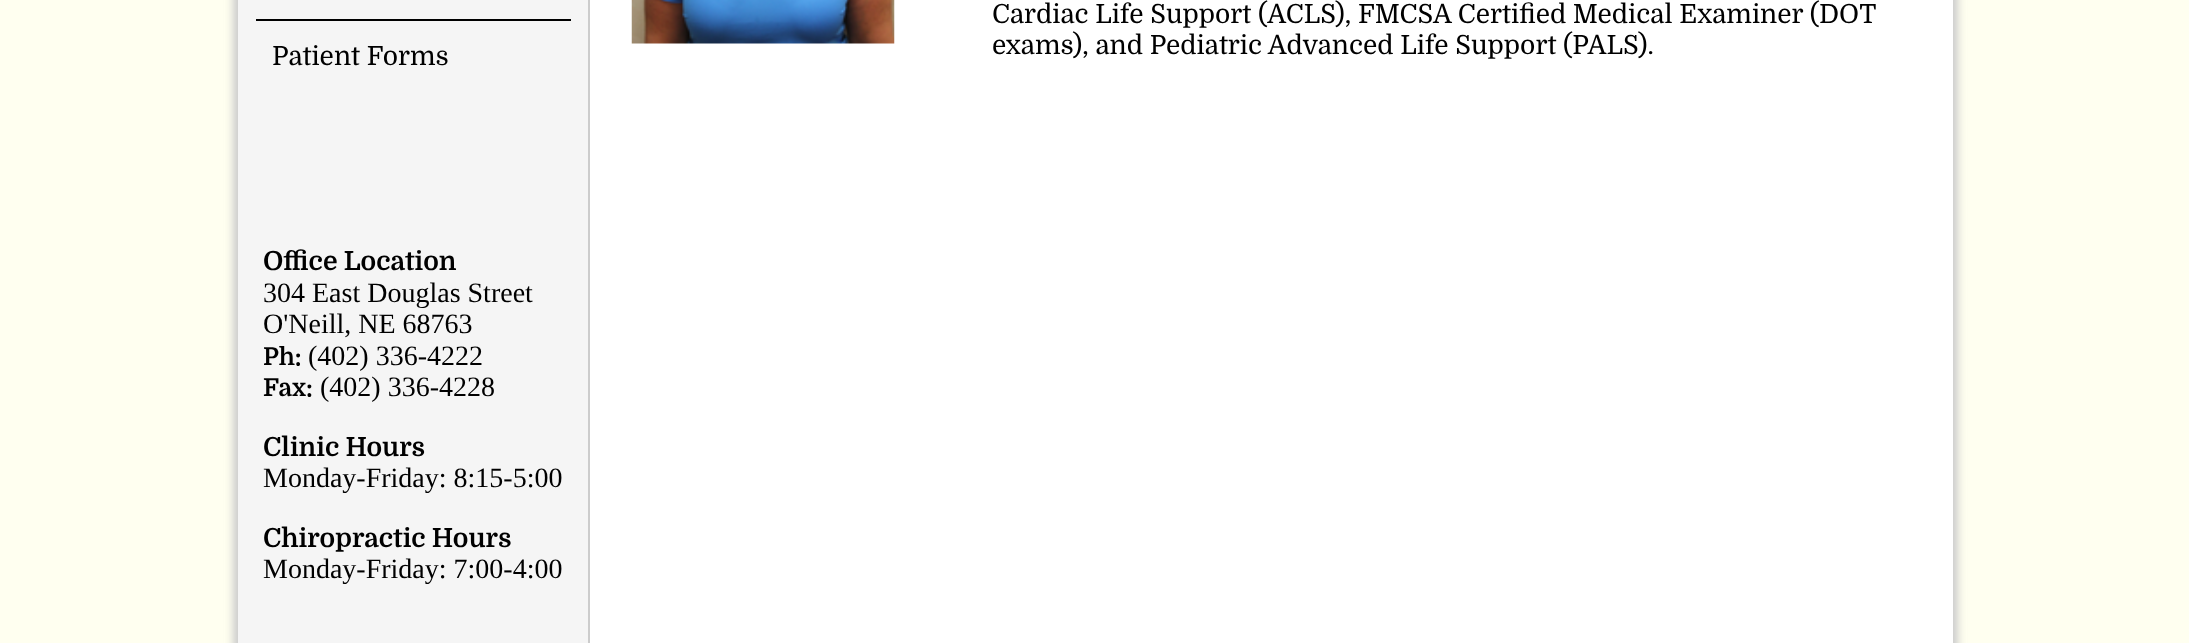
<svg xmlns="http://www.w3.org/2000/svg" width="2189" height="643">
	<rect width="100%" height="100%" fill="#FFFFF0" />
	<rect x="233" y="-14" width="1725" height="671" fill="#CCCCCC" filter="blur(4.5px)" />
	<rect x="590" y="0" width="1363" height="643" fill="#FFFFFF" />
	<image x="631" y="0" width="264" height="44" href="assets/img1.png" />
	<g font-family="Domine" font-size="26.25" fill="#000000">
		<text x="992" y="23">Cardiac Life Support (ACLS), FMCSA Certified Medical Examiner (DOT</text>
		<text x="992" y="54">exams), and Pediatric Advanced Life Support (PALS).</text>
	</g>
	<rect x="238" y="0" width="350" height="643" fill="#F5F5F5" />
	<rect x="256" y="19" width="315" height="2" fill="#000000" />
	<text x="272" y="65" font-family="Domine" font-size="26.25" fill="#000000">Patient Forms</text>
	<text x="263" y="270" font-family="Domine" font-size="26.25" font-weight="700" fill="#000000">Office Location</text>
	<g font-family="Liberation Serif" font-size="28" fill="#000000">
		<text x="263" y="302">304 East Douglas Street</text>
		<text x="263" y="333">O'Neill, NE 68763</text>
	</g>
	<text x="263" y="365" font-family="Domine" font-size="24.5" font-weight="700" fill="#000000">Ph:</text>
	<text x="308" y="365" font-family="Liberation Serif" font-size="28" fill="#000000">(402) 336-4222</text>
	<text x="263" y="396" font-family="Domine" font-size="24.5" font-weight="700" fill="#000000">Fax:</text>
	<text x="320" y="396" font-family="Liberation Serif" font-size="28" fill="#000000">(402) 336-4228</text>
	<text x="263" y="456" font-family="Domine" font-size="26.25" font-weight="700" fill="#000000">Clinic Hours</text>
	<text x="263" y="487" font-family="Liberation Serif" font-size="28" fill="#000000">Monday-Friday: 8:15-5:00</text>
	<text x="263" y="547" font-family="Domine" font-size="26.25" font-weight="700" fill="#000000">Chiropractic Hours</text>
	<text x="263" y="578" font-family="Liberation Serif" font-size="28" fill="#000000">Monday-Friday: 7:00-4:00</text>
</svg>
